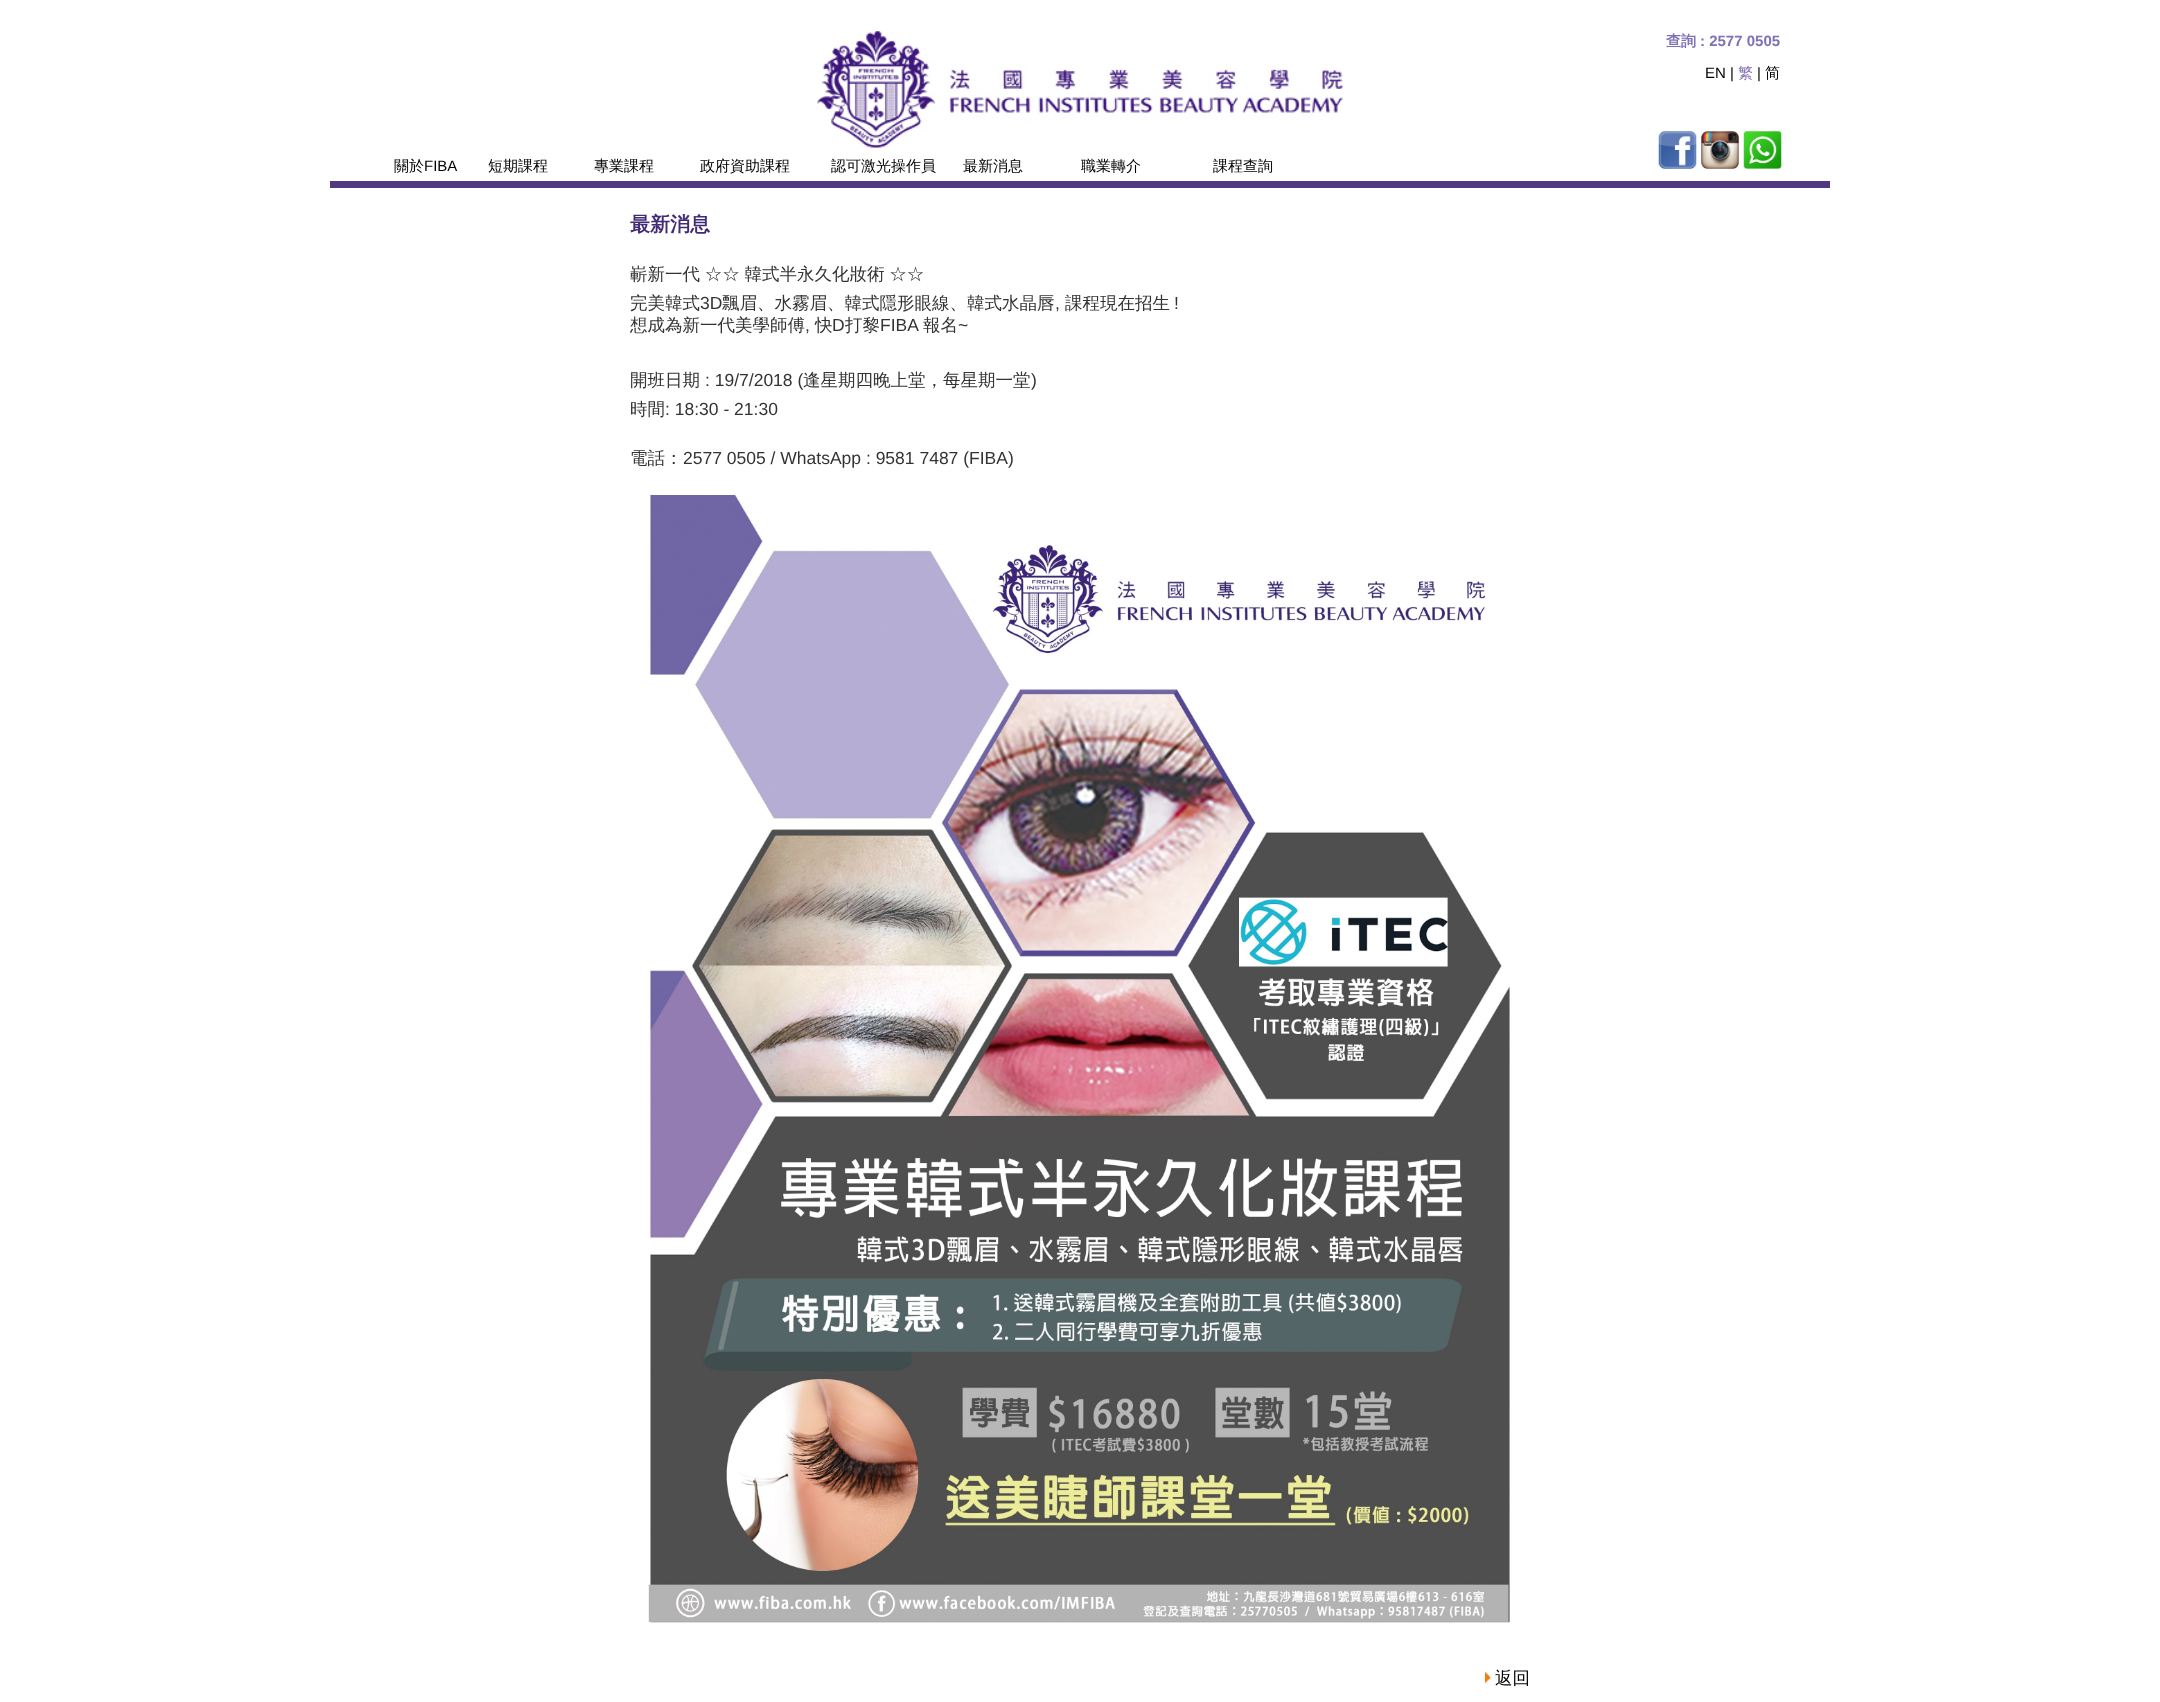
<svg xmlns="http://www.w3.org/2000/svg" width="2160" height="1702">
	<defs>
		<clipPath id="clip1"><rect x="1213" y="156" width="153" height="22" /></clipPath>
	</defs>
	<rect width="100%" height="100%" fill="#FFFFFF" />
	<rect x="330" y="181" width="1500" height="7" fill="#4F3A7F" />
	<text x="1666" y="46" font-family="WenQuanYi Zen Hei" font-size="15" font-weight="700" fill="#8170B4">查詢</text>
	<text x="1700" y="46" font-family="Liberation Sans" font-size="15" font-weight="700" fill="#8170B4">: 2577 0505</text>
	<text x="1705" y="78" font-family="Liberation Sans" font-size="15" fill="#000000">EN |</text>
	<text x="1738" y="78" font-family="WenQuanYi Zen Hei" font-size="15" font-weight="500" fill="#8170B4">繁</text>
	<text x="1757" y="78" font-family="Liberation Sans" font-size="15" fill="#000000">|</text>
	<text x="1765" y="78" font-family="WenQuanYi Zen Hei" font-size="15" font-weight="500" fill="#000000">简</text>
	<image x="817" y="31" width="526" height="117" href="assets/img1.png" />
	<text x="394" y="171" font-family="WenQuanYi Zen Hei" font-size="15" font-weight="500" fill="#000000">關於</text>
	<text x="424" y="171" font-family="Liberation Sans" font-size="15" fill="#000000">FIBA</text>
	<g font-family="WenQuanYi Zen Hei" font-size="15" font-weight="500" fill="#000000">
		<text x="488" y="171">短期課程</text>
		<text x="594" y="171">專業課程</text>
		<text x="700" y="171">政府資助課程</text>
		<text x="831" y="171">認可激光操作員</text>
		<text x="963" y="171">最新消息</text>
		<text x="1081" y="171">職業轉介</text>
	</g>
	<g clip-path="url(#clip1)">
		<text x="1213" y="171" font-family="WenQuanYi Zen Hei" font-size="15" font-weight="500" fill="#000000">課程查詢</text>
	</g>
	<image x="1658" y="131" width="39" height="38" href="assets/img2.png" />
	<image x="1701" y="131" width="38" height="38" href="assets/img3.png" />
	<image x="1743" y="131" width="39" height="38" href="assets/img4.png" />
	<text x="630" y="231" font-family="WenQuanYi Zen Hei" font-size="20" font-weight="700" fill="#412B76">最新消息</text>
	<g font-family="WenQuanYi Zen Hei" font-size="17.5" font-weight="500" fill="#333333">
		<text x="630" y="280" word-spacing="-0.5">嶄新一代 ☆☆ 韓式半永久化妝術 ☆☆</text>
		<text x="630" y="309">完美韓式</text>
	</g>
	<text x="700" y="309" font-family="Liberation Sans" font-size="17.5" fill="#333333">3D</text>
	<g font-family="WenQuanYi Zen Hei" font-size="17.5" font-weight="500" fill="#333333">
		<text x="722" y="309">飄眉、水霧眉、韓式隱形眼線、韓式水晶唇</text>
		<text x="1065" y="309">課程現在招生</text>
	</g>
	<g font-family="Liberation Sans" font-size="17.5" fill="#333333">
		<text x="1174" y="309">!</text>
		<text x="1055" y="309">,</text>
	</g>
	<g font-family="WenQuanYi Zen Hei" font-size="17.5" font-weight="500" fill="#333333">
		<text x="630" y="331">想成為新一代美學師傅</text>
		<text x="815" y="331">快</text>
	</g>
	<text x="832" y="331" font-family="Liberation Sans" font-size="17.5" fill="#333333">D</text>
	<text x="845" y="331" font-family="WenQuanYi Zen Hei" font-size="17.5" font-weight="500" fill="#333333">打黎</text>
	<text x="880" y="331" font-family="Liberation Sans" font-size="17.5" fill="#333333">FIBA</text>
	<text x="923" y="331" font-family="WenQuanYi Zen Hei" font-size="17.5" font-weight="500" fill="#333333">報名</text>
	<g font-family="Liberation Sans" font-size="17.5" fill="#333333">
		<text x="958" y="331">~</text>
		<text x="805" y="331">,</text>
	</g>
	<text x="630" y="386" font-family="WenQuanYi Zen Hei" font-size="17.5" font-weight="500" fill="#333333">開班日期</text>
	<text x="705" y="386" font-family="Liberation Sans" font-size="17.5" fill="#333333">: 19/7/2018 (</text>
	<text x="803" y="386" font-family="WenQuanYi Zen Hei" font-size="17.5" font-weight="500" fill="#333333">逢星期四晚上堂，每星期一堂</text>
	<text x="1031" y="386" font-family="Liberation Sans" font-size="17.5" fill="#333333">)</text>
	<text x="630" y="415" font-family="WenQuanYi Zen Hei" font-size="17.5" font-weight="500" fill="#333333">時間</text>
	<text x="665" y="415" font-family="Liberation Sans" font-size="17.5" fill="#333333">: 18:30 - 21:30</text>
	<text x="630" y="464" font-family="WenQuanYi Zen Hei" font-size="17.5" font-weight="500" fill="#333333">電話：</text>
	<text x="683" y="464" font-family="Liberation Sans" font-size="17.5" fill="#333333">2577 0505 / WhatsApp : 9581 7487 (FIBA)</text>
	<image x="648" y="494" width="862" height="1129" href="assets/img5.png" />
	<image x="1485" y="1671" width="7" height="13" href="assets/img6.png" />
	<text x="1495" y="1684" font-family="WenQuanYi Zen Hei" font-size="17.5" font-weight="500" fill="#000000">返回</text>
</svg>
